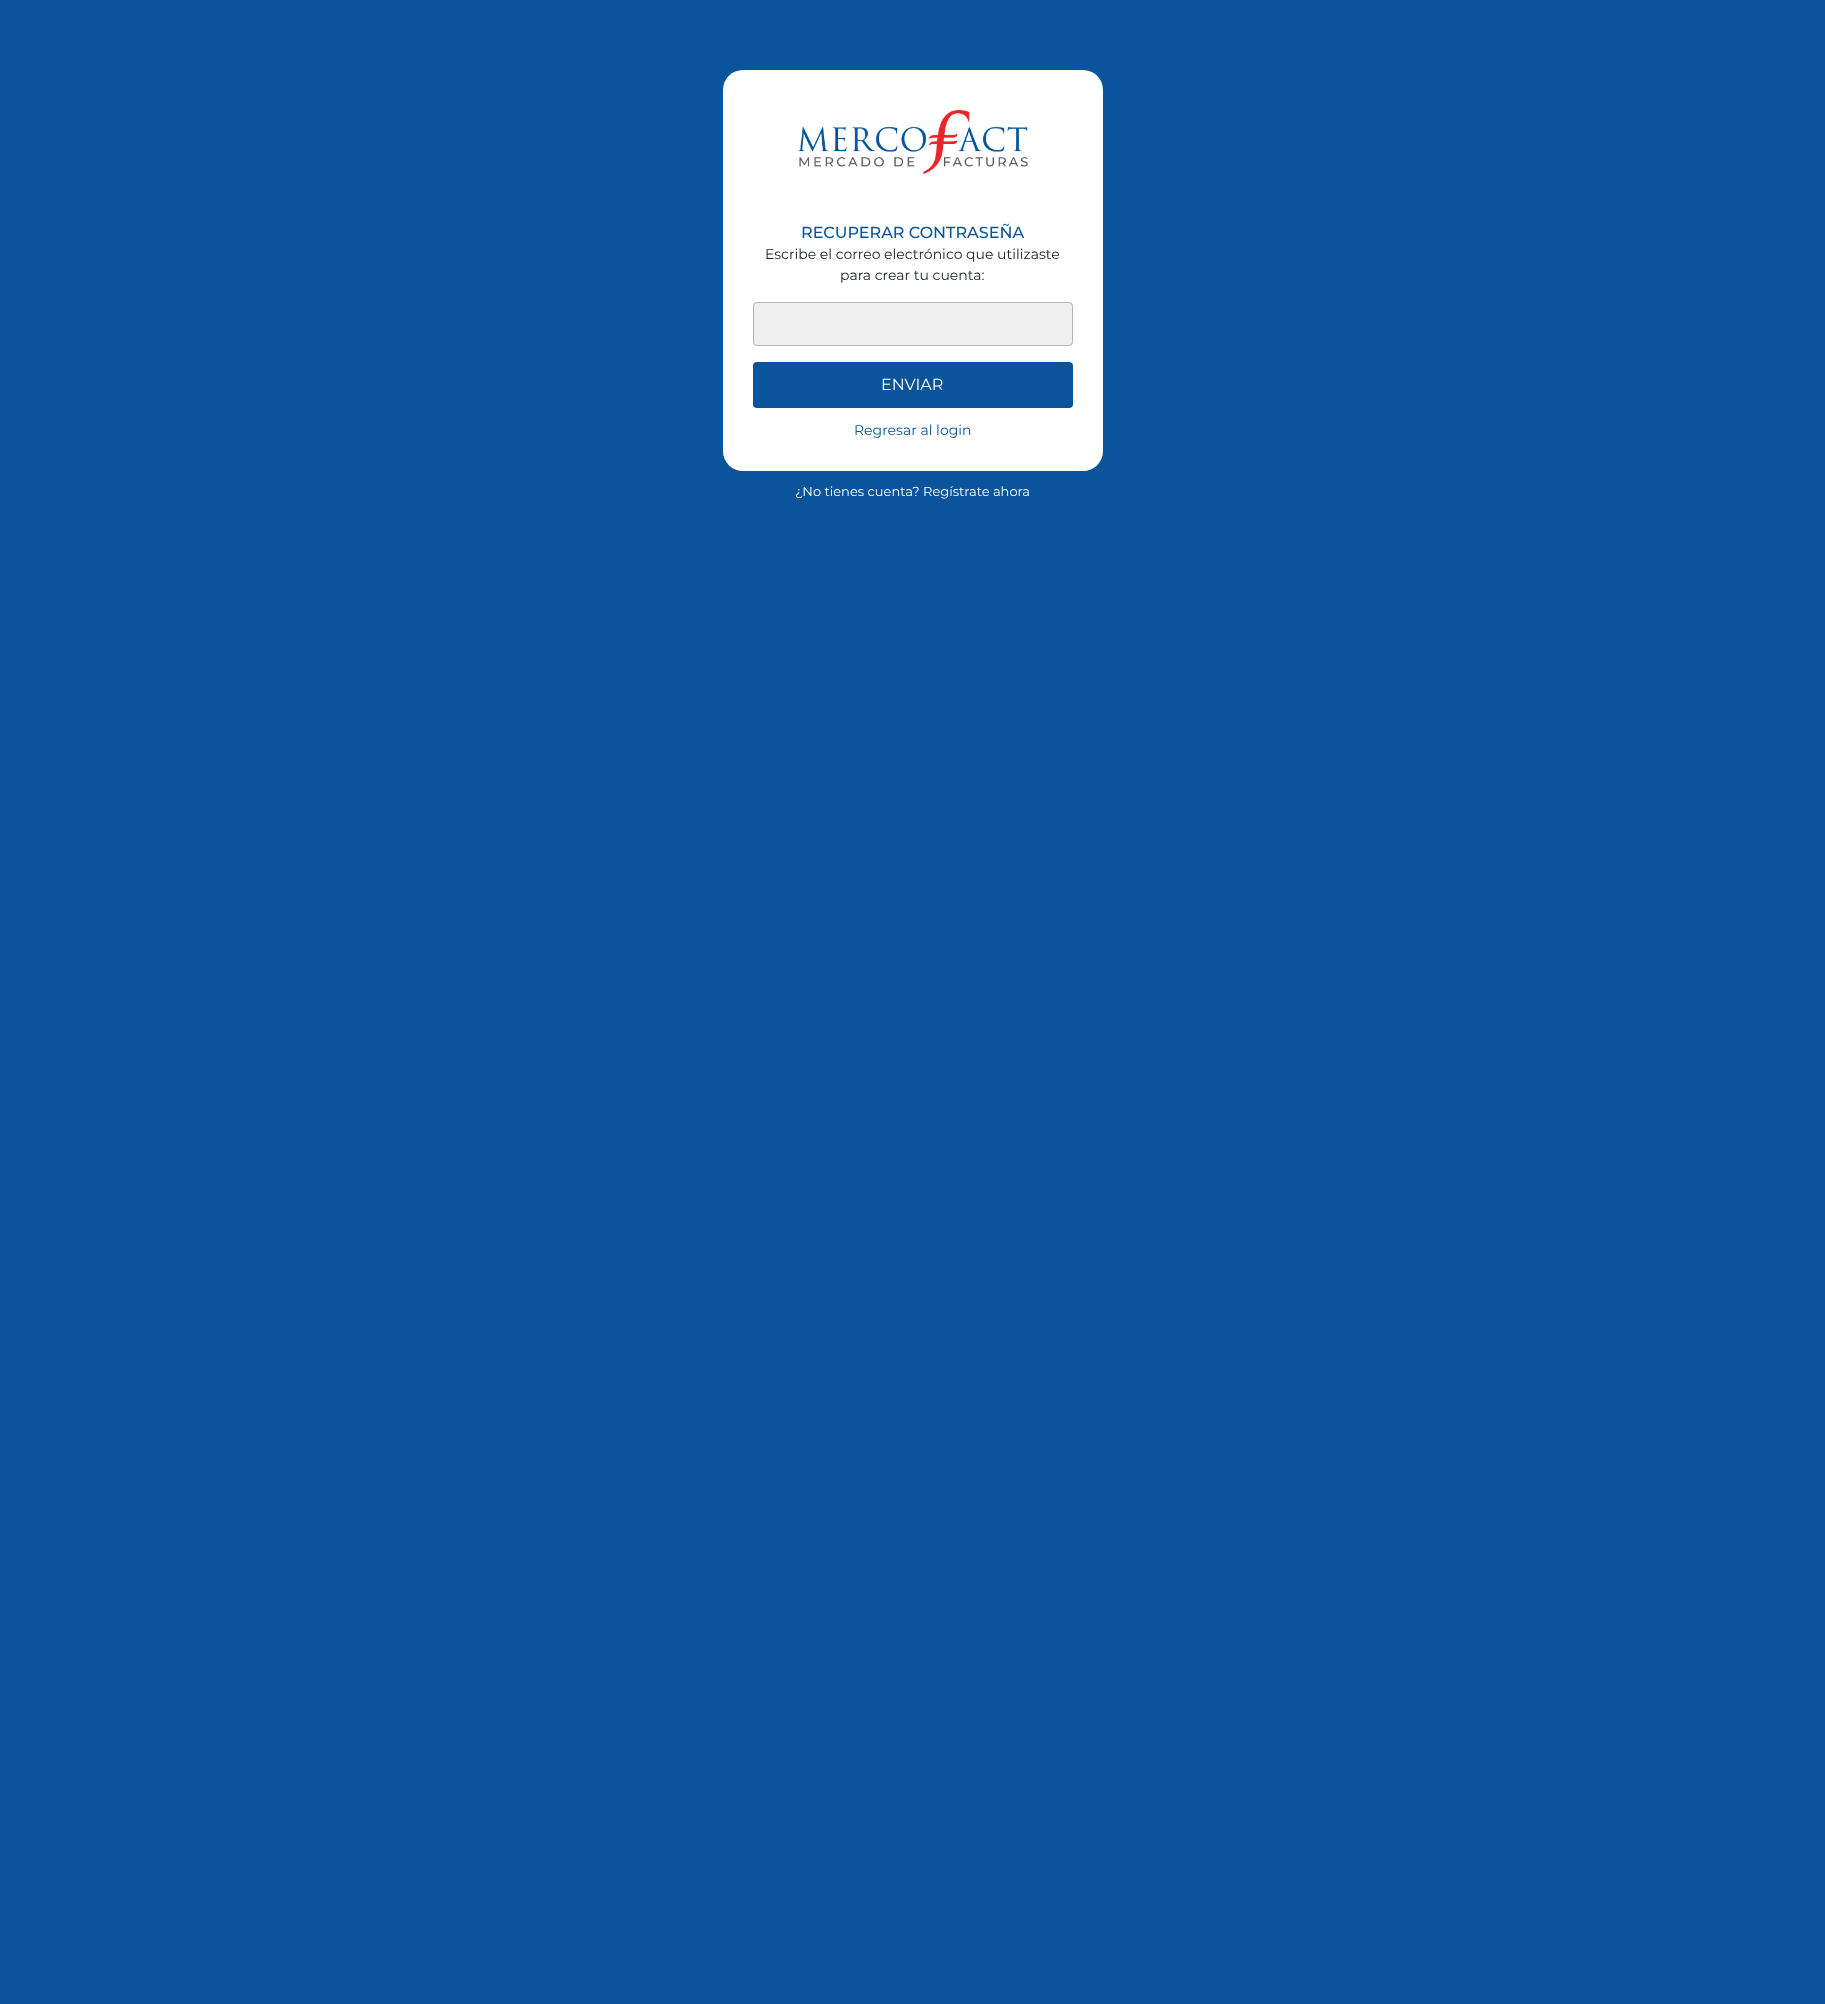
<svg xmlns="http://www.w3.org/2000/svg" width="1825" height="2004">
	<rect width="100%" height="100%" fill="#09549A" />
	<rect x="723" y="70" width="380" height="401" rx="20" fill="#FFFFFF" />
	<image x="798" y="110" width="230" height="65" href="assets/img1.png" />
	<text x="801" y="238" font-family="Montserrat" font-size="16" font-weight="500" fill="#09549A">RECUPERAR CONTRASEÑA</text>
	<g font-family="Montserrat" font-size="14" fill="#212529">
		<text x="765" y="259">Escribe el correo electrónico que utilizaste</text>
		<text x="840" y="280">para crear tu cuenta:</text>
	</g>
	<rect x="753.5" y="302.5" width="319" height="43" rx="3.5" fill="#EFEFEF" stroke="#B4B4B4" />
	<rect x="753" y="362" width="320" height="46" rx="4" fill="#09549A" />
	<text x="881" y="390" font-family="Montserrat" font-size="16" fill="#FFFFFF">ENVIAR</text>
	<text x="854" y="435" font-family="Montserrat" font-size="14" fill="#09549A">Regresar al login</text>
	<text x="795" y="496" font-family="Montserrat" font-size="13" fill="#FFFFFF">¿No tienes cuenta? Regístrate ahora</text>
</svg>
